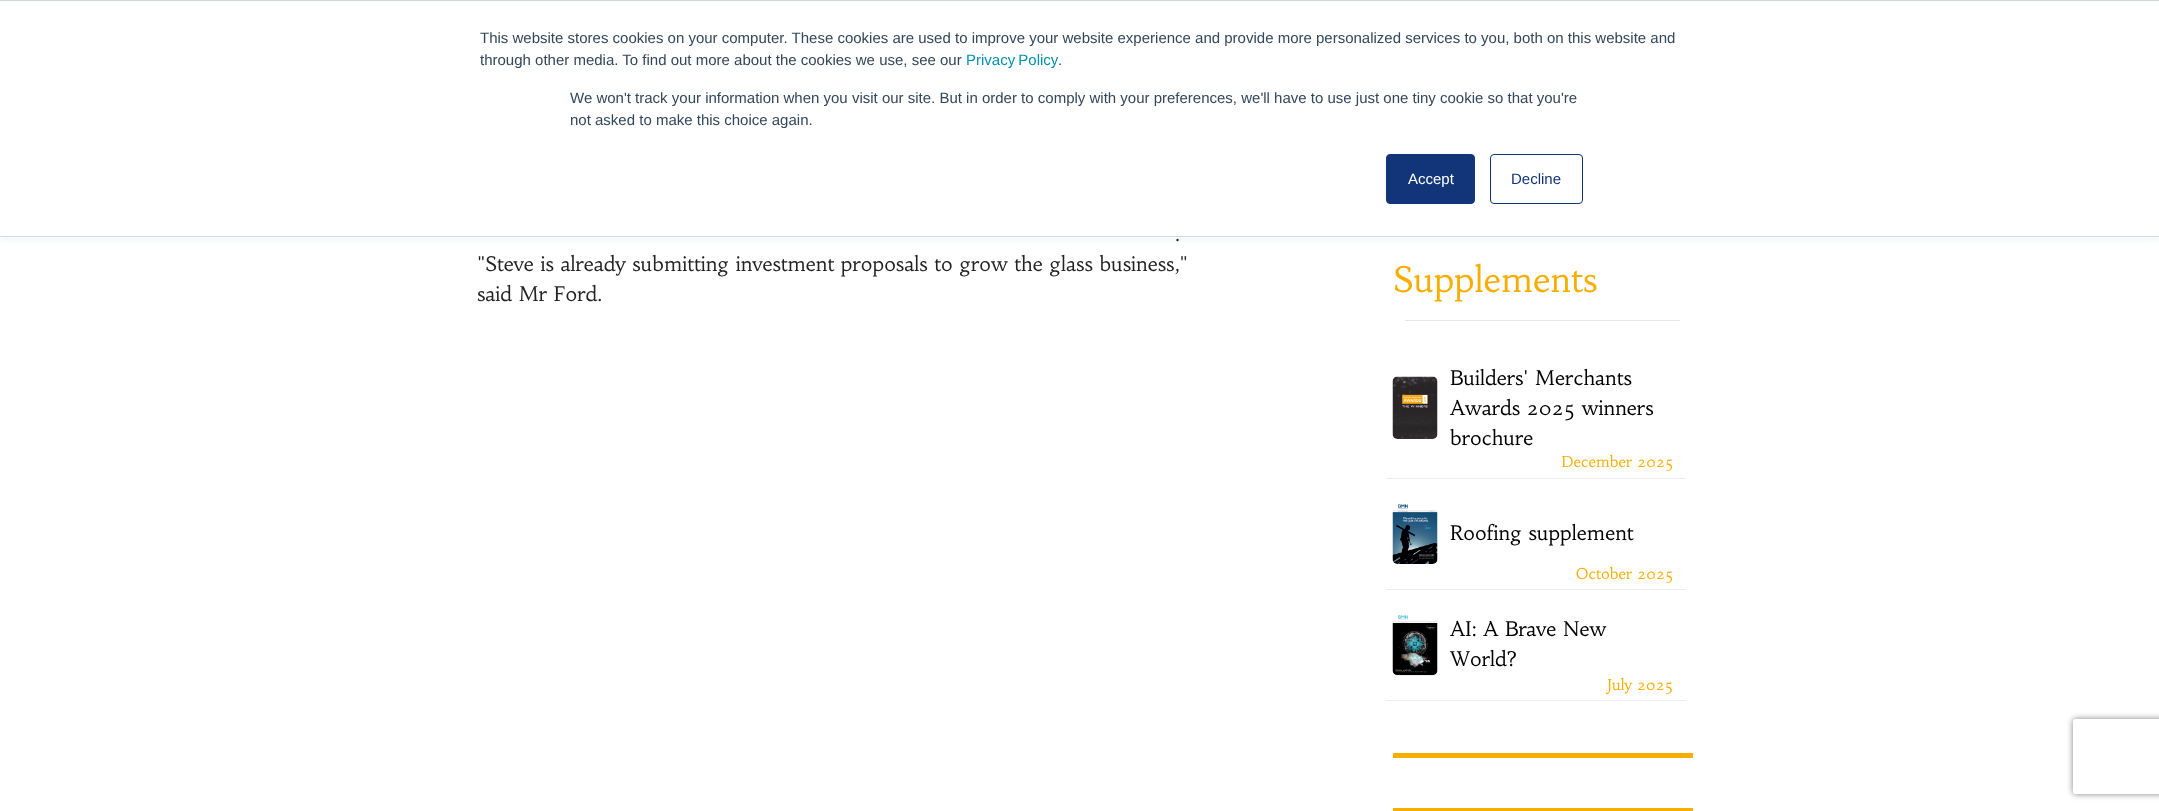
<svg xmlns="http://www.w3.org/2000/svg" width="2159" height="811">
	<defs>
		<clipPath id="clip1"><path d="M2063 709H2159V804H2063ZM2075.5 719H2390.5C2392 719 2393 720 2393 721.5V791.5C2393 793 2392 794 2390.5 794H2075.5C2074 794 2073 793 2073 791.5V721.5C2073 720 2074 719 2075.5 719Z" clip-rule="evenodd" /></clipPath>
	</defs>
	<rect width="100%" height="100%" fill="#FFFFFF" />
	<rect x="0" y="1" width="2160" height="238" fill="#EAF0F6" filter="blur(3px)" />
	<rect x="0" y="1" width="2159" height="237" fill="#FFFFFF" />
	<rect x="0" y="0" width="2159" height="1" fill="#CBD6E2" />
	<rect x="0" y="236" width="2159" height="1" fill="#CBD6E2" />
	<g font-family="Liberation Sans" font-size="15" fill="#33475B">
		<text x="480" y="43">This website stores cookies on your computer. These cookies are used to improve your website experience and provide more personalized services to you, both on this website and</text>
		<text x="480" y="65">through other media. To find out more about the cookies we use, see our</text>
	</g>
	<text x="966" y="65" word-spacing="-1" font-family="Liberation Sans" font-size="15" fill="#0091AE">Privacy Policy</text>
	<g font-family="Liberation Sans" font-size="15" fill="#33475B">
		<text x="1058" y="65">.</text>
		<text x="570" y="103">We won't track your information when you visit our site. But in order to comply with your preferences, we'll have to use just one tiny cookie so that you're</text>
		<text x="570" y="125">not asked to make this choice again.</text>
	</g>
	<rect x="1386.5" y="154.5" width="88" height="49" rx="3.5" fill="#123579" stroke="#123579" />
	<text x="1408" y="184" font-family="Liberation Sans" font-size="15" fill="#FFFFFF">Accept</text>
	<rect x="1490.5" y="154.5" width="92" height="49" rx="3.5" fill="none" stroke="#123579" />
	<text x="1511" y="184" font-family="Liberation Sans" font-size="15" fill="#123579">Decline</text>
	<g font-family="Habibi" font-size="20" fill="#232323">
		<text x="1175" y="241">.</text>
		<text x="477" y="271">"Steve is already submitting investment proposals to grow the glass business,"</text>
		<text x="477" y="301">said Mr Ford.</text>
	</g>
	<text x="1393" y="292" font-family="Habibi" font-size="35" fill="#F8AE01">Supplements</text>
	<rect x="1405" y="320" width="275" height="1" fill="#E6E6E6" />
	<rect x="1386" y="478" width="300" height="1" fill="#EDEDED" />
	<image x="1392" y="376" width="46" height="63" href="assets/img1.png" />
	<g font-family="Habibi" font-size="20" fill="#000000">
		<text x="1450" y="385">Builders' Merchants</text>
		<text x="1450" y="415">Awards 2025 winners</text>
		<text x="1450" y="445">brochure</text>
	</g>
	<text x="1561" y="467" font-family="Habibi" font-size="15" fill="#F8AE01">December 2025</text>
	<rect x="1386" y="589" width="300" height="1" fill="#EDEDED" />
	<image x="1392" y="504" width="46" height="60" href="assets/img2.png" />
	<text x="1450" y="540" font-family="Habibi" font-size="20" fill="#000000">Roofing supplement</text>
	<text x="1576" y="579" font-family="Habibi" font-size="15" fill="#F8AE01">October 2025</text>
	<rect x="1386" y="700" width="300" height="1" fill="#EDEDED" />
	<image x="1392" y="615" width="46" height="61" href="assets/img3.png" />
	<g font-family="Habibi" font-size="20" fill="#000000">
		<text x="1450" y="636">AI: A Brave New</text>
		<text x="1450" y="666">World?</text>
	</g>
	<text x="1607" y="690" font-family="Habibi" font-size="15" fill="#F8AE01">July 2025</text>
	<rect x="1393" y="753" width="300" height="5" fill="#F8AE01" />
	<rect x="1393" y="808" width="300" height="3" fill="#F8AE01" />
	<g clip-path="url(#clip1)">
		<rect x="2073" y="719" width="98" height="75" rx="2.5" fill="#808080" filter="blur(3px)" />
	</g>
</svg>
